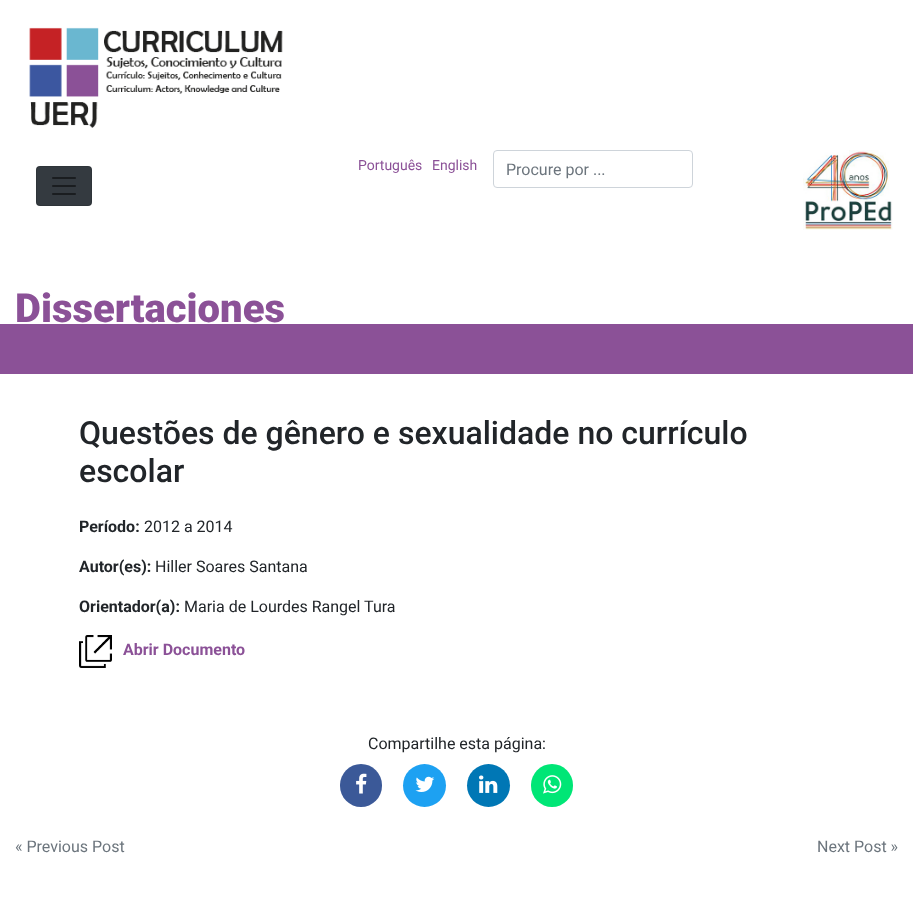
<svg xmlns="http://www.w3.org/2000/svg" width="913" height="907">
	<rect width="100%" height="100%" fill="#FFFFFF" />
	<image x="29" y="27" width="254" height="101" href="assets/img1.png" />
	<rect x="36" y="166" width="56" height="40" rx="4" fill="#343A40" />
	<rect x="36.5" y="166.5" width="55" height="39" rx="3.5" fill="none" stroke="#000000" stroke-opacity="0.1" />
	<image x="52" y="177" width="24" height="18" href="assets/img2.png" />
	<g font-family="Roboto" font-size="14" fill="#8B5197">
		<text x="358" y="170">Português</text>
		<text x="432" y="170">English</text>
	</g>
	<rect x="493.5" y="150.5" width="199" height="37" rx="3.5" fill="none" stroke="#CED4DA" />
	<text x="506" y="175" font-family="Roboto" font-size="16" fill="#6C757D">Procure por ...</text>
	<image x="803" y="150" width="90" height="80" href="assets/img3.png" />
	<text x="15" y="322" font-family="Roboto" font-size="40" font-weight="900" fill="#8B5197">Dissertaciones</text>
	<rect x="0" y="324" width="913" height="50" fill="#8B5197" />
	<g font-family="Roboto" font-size="32" font-weight="500" fill="#212529">
		<text x="79" y="444">Questões de gênero e sexualidade no currículo</text>
		<text x="79" y="482">escolar</text>
	</g>
	<text x="79" y="532" font-family="Roboto" font-size="16" font-weight="700" fill="#212529">Período:</text>
	<text x="144" y="532" font-family="Roboto" font-size="16" fill="#212529">2012 a 2014</text>
	<text x="79" y="572" font-family="Roboto" font-size="16" font-weight="700" fill="#212529">Autor(es):</text>
	<text x="155" y="572" font-family="Roboto" font-size="16" fill="#212529">Hiller Soares Santana</text>
	<text x="79" y="612" font-family="Roboto" font-size="16" font-weight="700" fill="#212529">Orientador(a):</text>
	<text x="184" y="612" font-family="Roboto" font-size="16" fill="#212529">Maria de Lourdes Rangel Tura</text>
	<image x="79" y="635" width="33" height="33" href="assets/img4.png" />
	<text x="123" y="655" font-family="Roboto" font-size="16" font-weight="700" fill="#8B5197">Abrir Documento</text>
	<text x="368" y="749" font-family="Roboto" font-size="16" fill="#212529">Compartilhe esta página:</text>
	<rect x="340" y="764" width="42" height="43" rx="21" fill="#3B5998" />
	<image x="356" y="773" width="11" height="21" href="assets/img5.png" />
	<circle cx="424.5" cy="785.5" r="21.5" fill="#1DA1F2" />
	<image x="415" y="776" width="20" height="16" href="assets/img6.png" />
	<circle cx="488.5" cy="785.5" r="21.5" fill="#0077B5" />
	<image x="479" y="775" width="19" height="18" href="assets/img7.png" />
	<rect x="531" y="764" width="42" height="43" rx="21" fill="#00E676" />
	<image x="543" y="775" width="19" height="19" href="assets/img8.png" />
	<g font-family="Roboto" font-size="16" fill="#6C757D">
		<text x="15" y="852">« Previous Post</text>
		<text x="817" y="852">Next Post »</text>
	</g>
</svg>
